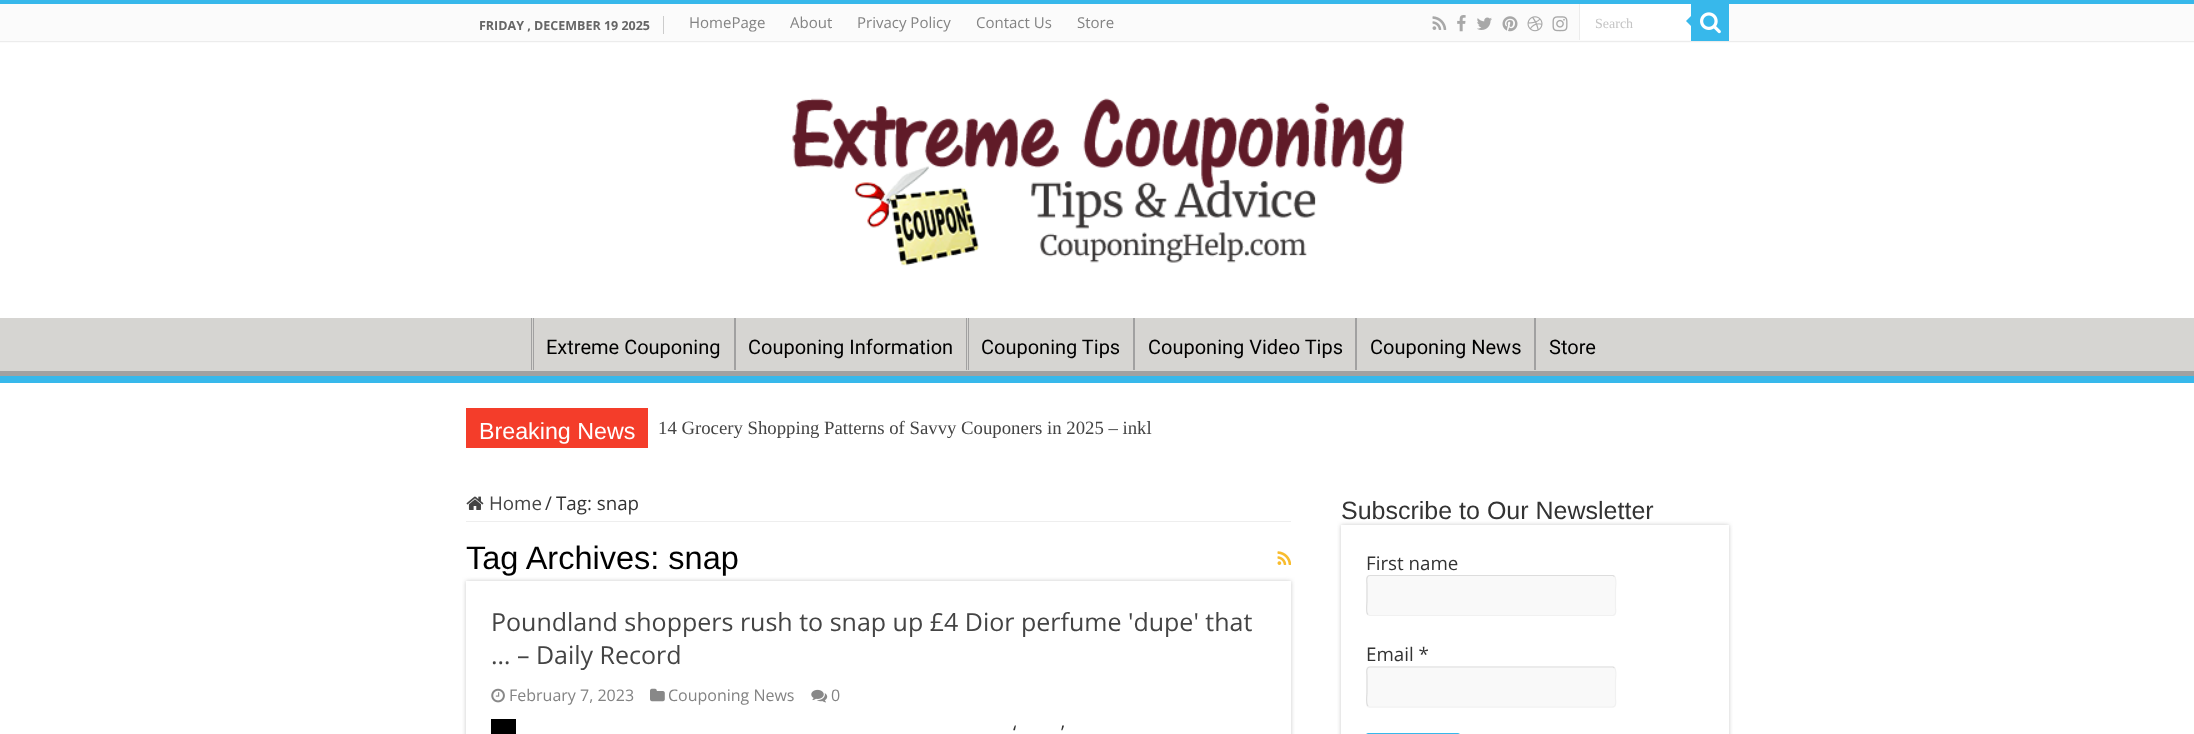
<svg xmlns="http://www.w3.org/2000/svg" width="2194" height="734">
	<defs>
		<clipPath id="clip1"><rect x="0" y="318" width="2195" height="58" /></clipPath>
	</defs>
	<rect width="100%" height="100%" fill="#FFFFFF" />
	<rect x="0" y="0" width="2194" height="4" fill="#37B8EB" />
	<rect x="0" y="4" width="2194" height="39" fill="#FBFBFB" />
	<rect x="0" y="41" width="2194" height="1" fill="#ECECEC" />
	<rect x="663" y="16" width="1" height="18" fill="#CCCCCC" />
	<text x="479" y="30" font-family="Open Sans" font-size="12.5" font-weight="700" fill="#666666">FRIDAY , DECEMBER 19 2025</text>
	<g font-family="Open Sans" font-size="15" fill="#838383">
		<text x="689" y="28">HomePage</text>
		<text x="790" y="28">About</text>
		<text x="857" y="28">Privacy Policy</text>
		<text x="976" y="28">Contact Us</text>
		<text x="1077" y="28">Store</text>
	</g>
	<image x="1432" y="16" width="15" height="14" href="assets/img1.png" />
	<image x="1457" y="15" width="9" height="17" href="assets/img2.png" />
	<image x="1477" y="17" width="15" height="13" href="assets/img3.png" />
	<image x="1502" y="16" width="16" height="16" href="assets/img4.png" />
	<image x="1527" y="16" width="16" height="16" href="assets/img5.png" />
	<image x="1552" y="16" width="16" height="16" href="assets/img6.png" />
	<rect x="1580" y="4" width="111" height="36" fill="#FFFFFF" />
	<rect x="1579" y="4" width="1" height="36" fill="#ECECEC" />
	<text x="1595" y="28" font-family="Liberation Serif" font-size="14" fill="#C5C5C5">Search</text>
	<rect x="1691" y="4" width="38" height="37" fill="#37B8EB" />
	<image x="1700" y="12" width="21" height="22" href="assets/img7.png" />
	<path d="M1691 16V26L1686 21Z" fill="#37B8EB" />
	<image x="792" y="98" width="612" height="168" href="assets/img8.png" />
	<rect x="0" y="318" width="2194" height="53" fill="#D6D5D2" />
	<g clip-path="url(#clip1)">
		<path d="M-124 194H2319V500H-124ZM-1 310H2194C2194 310 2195 311 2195 311V370C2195 371 2194 371 2194 371H-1C-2 371-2 371-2 370V311C-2 311-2 310-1 310Z" fill="#A1A1A1" fill-rule="evenodd" />
	</g>
	<rect x="0" y="376" width="2194" height="7" fill="#37B8EB" />
	<rect x="531" y="318" width="1" height="52" fill="#A1A1A1" />
	<rect x="533" y="318" width="1" height="52" fill="#A1A1A1" />
	<text x="546" y="354" font-family="Roboto" font-size="20" fill="#000000">Extreme Couponing</text>
	<rect x="734" y="318" width="2" height="52" fill="#A1A1A1" />
	<text x="748" y="354" font-family="Roboto" font-size="20" fill="#000000">Couponing Information</text>
	<rect x="966" y="318" width="1" height="52" fill="#A1A1A1" />
	<rect x="968" y="318" width="1" height="52" fill="#A1A1A1" />
	<text x="981" y="354" font-family="Roboto" font-size="20" fill="#000000">Couponing Tips</text>
	<rect x="1133" y="318" width="2" height="52" fill="#A1A1A1" />
	<text x="1148" y="354" font-family="Roboto" font-size="20" fill="#000000">Couponing Video Tips</text>
	<rect x="1355" y="318" width="2" height="52" fill="#A1A1A1" />
	<text x="1370" y="354" font-family="Roboto" font-size="20" fill="#000000">Couponing News</text>
	<rect x="1534" y="318" width="2" height="52" fill="#A1A1A1" />
	<text x="1549" y="354" font-family="Roboto" font-size="20" fill="#000000">Store</text>
	<rect x="466" y="408" width="1263" height="40" fill="#CACACA" filter="blur(0.5px)" />
	<rect x="648" y="408" width="1081" height="40" fill="#FFFFFF" />
	<rect x="466" y="408" width="182" height="40" fill="#F43D2A" />
	<text x="479" y="439" font-family="Liberation Sans" font-size="23.25" fill="#FFFFFF">Breaking News</text>
	<text x="658" y="434" font-family="Liberation Serif" font-size="18.75" fill="#444444">14 Grocery Shopping Patterns of Savvy Couponers in 2025 – inkl</text>
	<rect x="466" y="521" width="825" height="1" fill="#EEEEEE" />
	<image x="466" y="496" width="18" height="14" href="assets/img9.png" />
	<text x="489" y="510" font-family="Open Sans" font-size="18.75" fill="#444444">Home</text>
	<g font-family="Open Sans" font-size="18.75" fill="#333333">
		<text x="545" y="510">/</text>
		<text x="556" y="510">Tag: snap</text>
	</g>
	<rect x="466" y="581" width="825" height="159" fill="#CACACA" filter="blur(2px)" />
	<text x="466" y="569" font-family="Liberation Sans" font-size="32.5" fill="#000000">Tag Archives: snap</text>
	<image x="1277" y="551" width="14" height="14" href="assets/img10.png" />
	<rect x="466" y="581" width="825" height="153" fill="#FFFFFF" />
	<g font-family="Open Sans" font-size="25" fill="#444444">
		<text x="491" y="631">Poundland shoppers rush to snap up £4 Dior perfume 'dupe' that</text>
		<text x="491" y="664">… – Daily Record</text>
	</g>
	<image x="491" y="688" width="14" height="15" href="assets/img11.png" />
	<text x="509" y="701" font-family="Open Sans" font-size="16" fill="#838383">February 7, 2023</text>
	<image x="650" y="688" width="15" height="14" href="assets/img12.png" />
	<text x="668" y="701" font-family="Open Sans" font-size="16" fill="#838383">Couponing News</text>
	<image x="811" y="689" width="17" height="14" href="assets/img13.png" />
	<text x="831" y="701" font-family="Open Sans" font-size="16" fill="#838383">0</text>
	<rect x="491" y="719" width="25" height="15" fill="#000000" />
	<g font-family="Open Sans" font-size="18.75" fill="#333333">
		<text x="1013" y="739">‘</text>
		<text x="1061" y="739">’</text>
	</g>
	<rect x="1341" y="525" width="388" height="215" fill="#CACACA" filter="blur(2px)" />
	<text x="1341" y="519" font-family="Liberation Sans" font-size="25" fill="#333333">Subscribe to Our Newsletter</text>
	<rect x="1341" y="525" width="388" height="209" fill="#FFFFFF" />
	<text x="1366" y="570" font-family="Open Sans" font-size="18.75" fill="#333333">First name</text>
	<rect x="1366" y="575" width="250" height="41" rx="4" fill="#F9F9F9" />
	<path d="M1614.5 576.5C1617 579 1615.5 587.5 1615.5 590V607C1615.5 609 1617 615.5 1612.5 615.5H1369.5L1368 614.5" fill="none" stroke="#F1F1F1" stroke-width="1.2" />
	<path d="M1368 614.5C1365.5 612.5 1367 604 1367 601V584.5C1367 582 1365.5 575.5 1370 575.5H1613L1614.5 576.5" fill="none" stroke="#DDDDDD" stroke-width="1.2" />
	<text x="1366" y="661" font-family="Open Sans" font-size="18.75" fill="#333333">Email *</text>
	<rect x="1366" y="666" width="250" height="42" rx="4" fill="#F9F9F9" />
	<path d="M1614.5 668C1617 670 1615.5 678.5 1615.5 681V698C1615.5 700.5 1617 707 1612.5 707H1369.5L1368 706" fill="none" stroke="#F1F1F1" stroke-width="1.2" />
	<path d="M1368 706C1365.5 703.5 1367 695 1367 692.5V675.5C1367 673.5 1365.5 667 1370 667H1613L1614.5 668" fill="none" stroke="#DDDDDD" stroke-width="1.2" />
	<rect x="1366" y="733" width="94" height="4" rx="2.5" fill="#37B8EB" />
</svg>
